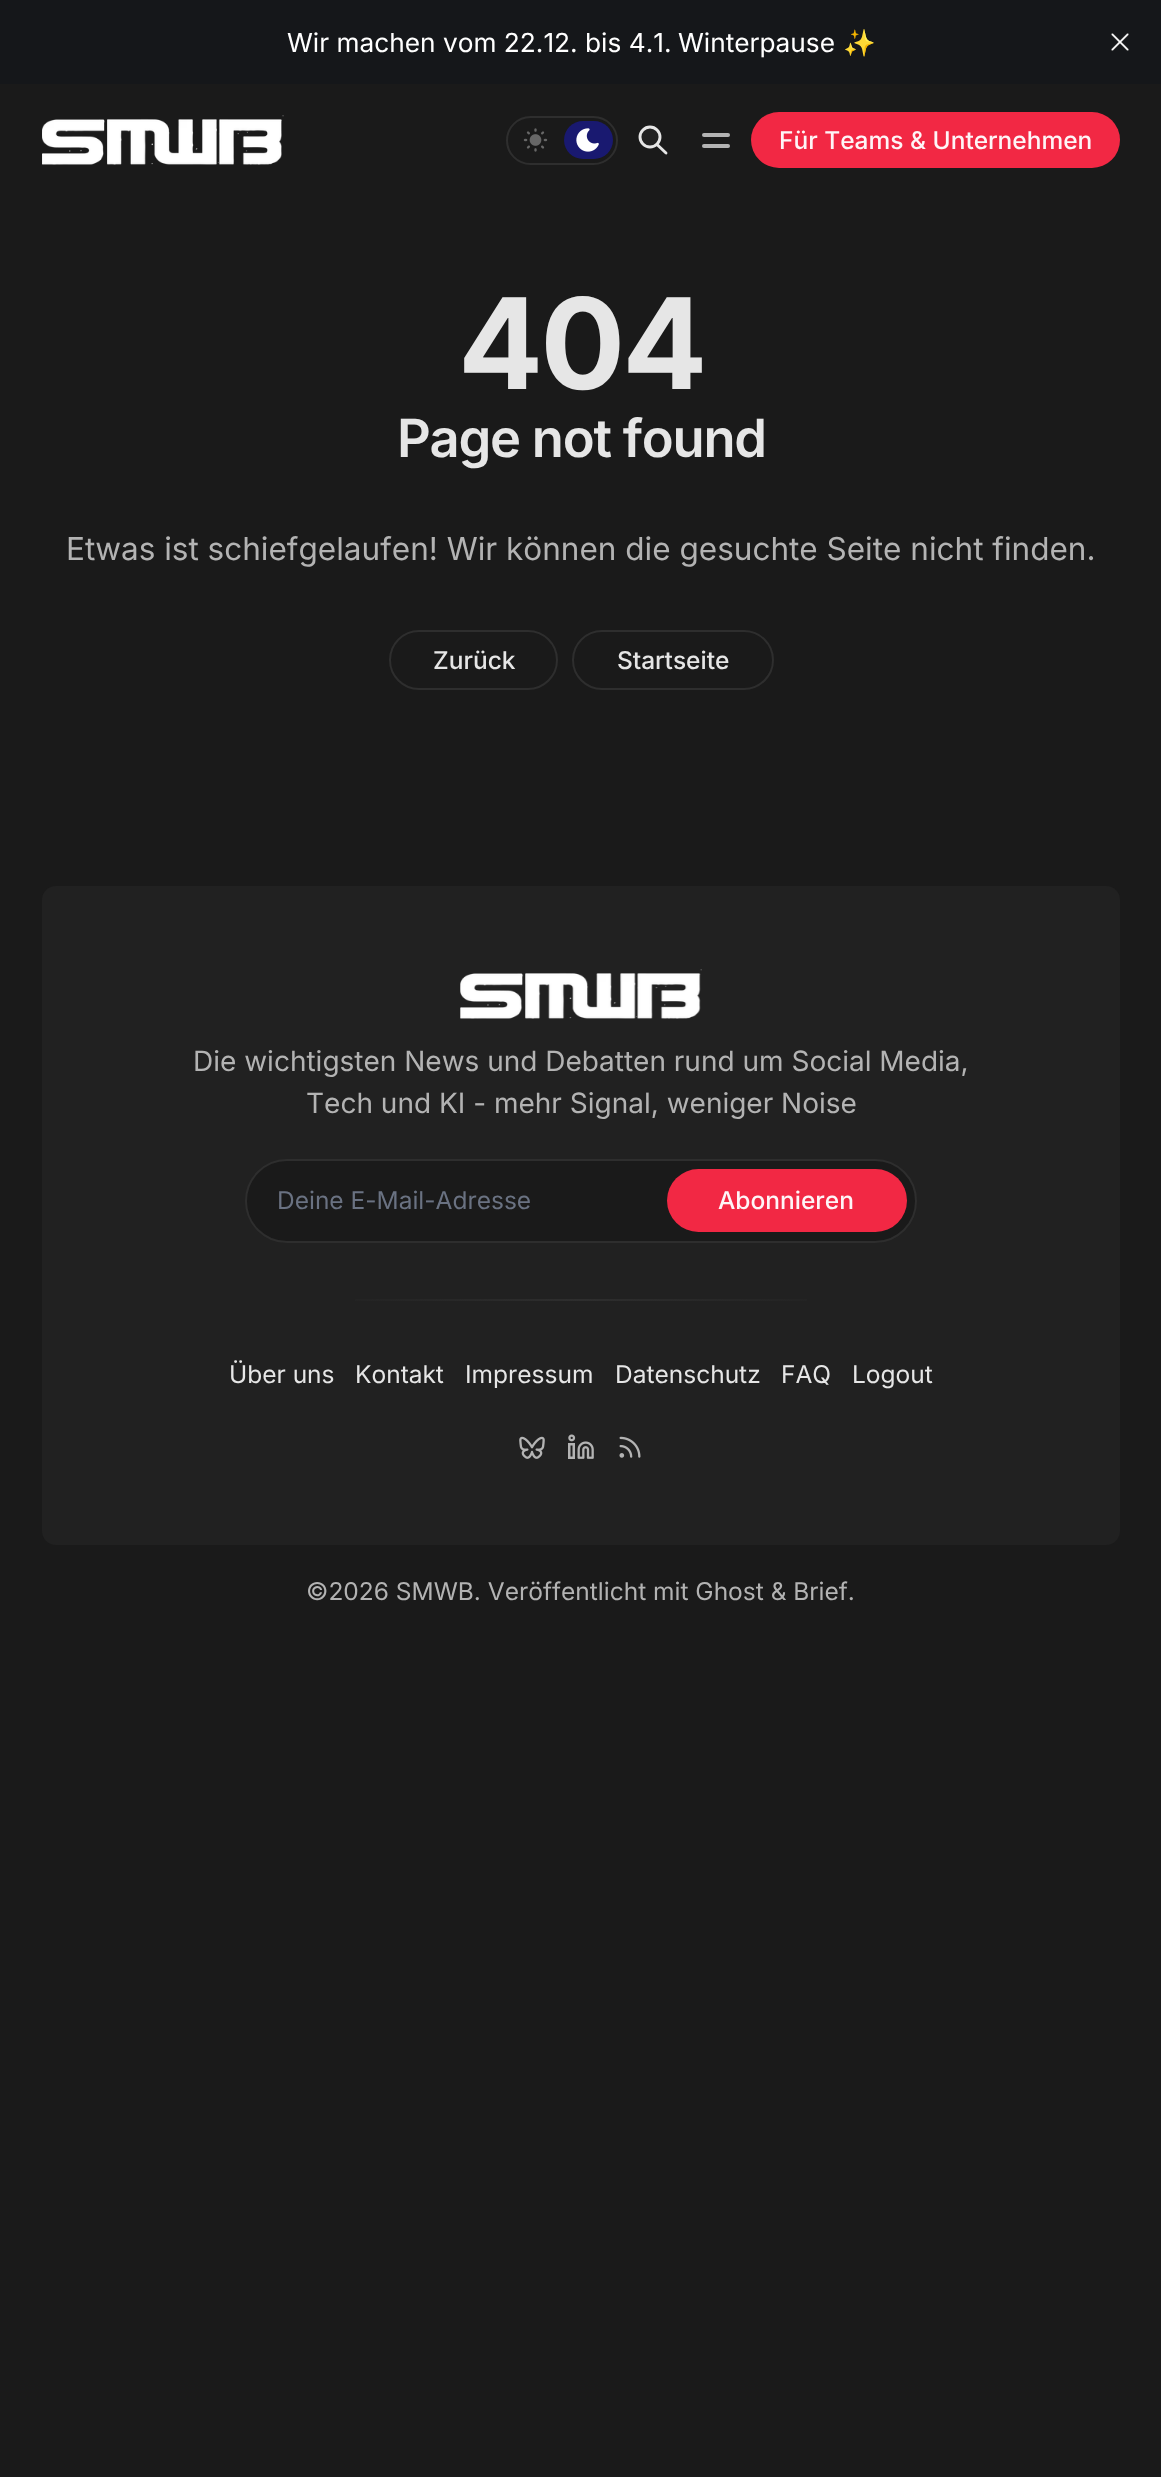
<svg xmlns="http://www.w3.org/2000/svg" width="1161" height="2477">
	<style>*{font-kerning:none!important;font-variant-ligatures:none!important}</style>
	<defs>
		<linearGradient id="g1" gradientUnits="userSpaceOnUse" x1="301" y1="1299" x2="861" y2="1299"><stop offset="0" stop-color="#212121" /><stop offset="0.5" stop-color="#2E2E2E" /><stop offset="1" stop-color="#212121" /></linearGradient>
	</defs>
	<rect width="100%" height="100%" fill="#1A1A1A" />
	<rect x="0" y="0" width="1161" height="84" fill="#15171A" />
	<text x="287" y="52" font-family="Inter" font-size="26.25" fill="#FFFFFF">Wir machen vom 22.12. bis 4.1.</text>
	<text x="678" y="52" font-family="Inter" font-size="26.25" fill="#FFFFFF">Winterpause</text>
	<text x="843" y="52" font-family="Noto Color Emoji" font-size="26.25" fill="#FFFFFF">✨</text>
	<image x="1111" y="33" width="18" height="18" href="assets/img1.png" />
	<image x="42" y="115" width="242" height="50" href="assets/img2.png" />
	<rect x="507" y="117" width="110" height="47" rx="23.5" fill="none" stroke="#2E2E2E" stroke-width="2" />
	<image x="523" y="128" width="25" height="24" href="assets/img3.png" />
	<rect x="564" y="121" width="49" height="38" rx="19" fill="#191970" />
	<image x="576" y="128" width="23" height="24" href="assets/img4.png" />
	<circle cx="650" cy="137" r="10" fill="#212121" stroke="#E6E6E6" stroke-width="2.9" />
	<path d="M666 153L657 144.5" fill="none" stroke="#E6E6E6" stroke-width="2.9" stroke-linecap="round" stroke-linejoin="round" />
	<rect x="702" y="133" width="28" height="4" rx="2" fill="#B3B3B3" />
	<rect x="702" y="144" width="28" height="4" rx="2" fill="#B3B3B3" />
	<rect x="751" y="112" width="369" height="56" rx="28" fill="#F22844" />
	<text x="779" y="149" font-family="Inter" font-size="24.5" font-weight="500" fill="#FEF5F7">Für Teams &amp; Unternehmen</text>
	<text x="458" y="389" font-family="Inter" font-size="126" font-weight="700" letter-spacing="-3" fill="#E6E6E6">404</text>
	<text x="397" y="457" font-family="Inter" font-size="52.5" font-weight="600" letter-spacing="-1.25" fill="#E6E6E6">Page not found</text>
	<text x="66" y="560" font-family="Inter" font-size="31.5" fill="#B3B3B3">Etwas ist schiefgelaufen! Wir können die gesuchte Seite nicht finden.</text>
	<rect x="390" y="631" width="167" height="58" rx="29" fill="none" stroke="#2E2E2E" stroke-width="2" />
	<text x="433" y="669" font-family="Inter" font-size="24.5" font-weight="500" fill="#E6E6E6">Zurück</text>
	<rect x="573" y="631" width="200" height="58" rx="29" fill="none" stroke="#2E2E2E" stroke-width="2" />
	<text x="617" y="669" font-family="Inter" font-size="24.5" font-weight="500" fill="#E6E6E6">Startseite</text>
	<rect x="42" y="886" width="1078" height="659" rx="14" fill="#212121" />
	<image x="460" y="969" width="242" height="50" href="assets/img5.png" />
	<g font-family="Inter" font-size="28" fill="#B3B3B3">
		<text x="193" y="1071">Die wichtigsten News und Debatten rund um Social Media,</text>
		<text x="306" y="1113">Tech und KI - mehr Signal, weniger Noise</text>
	</g>
	<rect x="246" y="1160" width="670" height="82" rx="41" fill="#1A1A1A" stroke="#2E2E2E" stroke-width="2" />
	<text x="277" y="1209" font-family="Inter" font-size="24.5" fill="#6A7282">Deine E-Mail-Adresse</text>
	<rect x="667" y="1169" width="240" height="63" rx="31.5" fill="#F22844" />
	<text x="718" y="1209" font-family="Inter" font-size="24.5" font-weight="500" fill="#FEF5F7">Abonnieren</text>
	<rect x="355" y="1299" width="452" height="2" fill="url(#g1)" />
	<g font-family="Inter" font-size="24.5" fill="#E6E6E6">
		<text x="229" y="1383">Über uns</text>
		<text x="355" y="1383">Kontakt</text>
		<text x="465" y="1383">Impressum</text>
		<text x="615" y="1383">Datenschutz</text>
		<text x="781" y="1383">FAQ</text>
		<text x="852" y="1383">Logout</text>
	</g>
	<image x="519" y="1436" width="26" height="23" href="assets/img6.png" />
	<image x="568" y="1434" width="26" height="25" href="assets/img7.png" />
	<image x="619" y="1436" width="22" height="22" href="assets/img8.png" />
	<text x="306" y="1600" font-family="Inter" font-size="24.5" fill="#B3B3B3">©2026 SMWB. Veröffentlicht mit Ghost &amp; Brief.</text>
</svg>
